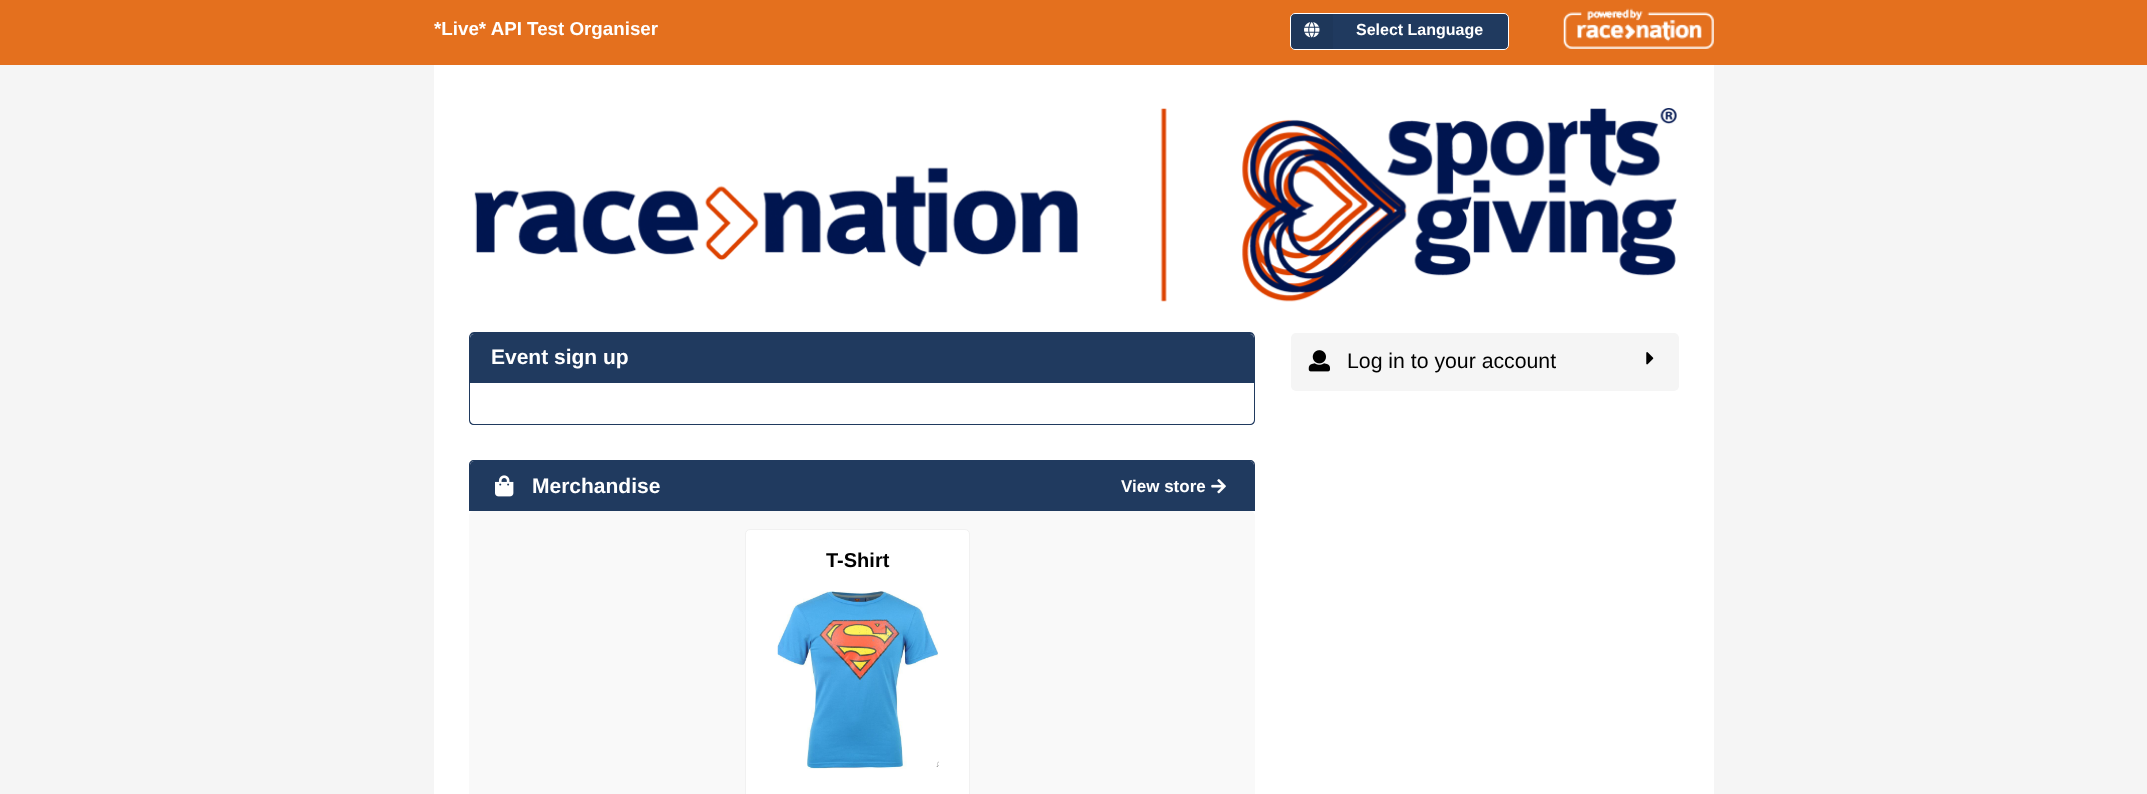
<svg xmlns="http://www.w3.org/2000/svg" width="2147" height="794">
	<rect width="100%" height="100%" fill="#F5F5F5" />
	<rect x="0" y="0" width="2147" height="65" fill="#E4701E" />
	<text x="434" y="35" font-family="Liberation Sans" font-size="18.75" font-weight="700" fill="#FFFFFF">*Live* API Test Organiser</text>
	<rect x="1290.5" y="13.5" width="218" height="36" rx="4.5" fill="#203A5F" stroke="#FFFFFF" />
	<rect x="1291" y="14" width="42" height="35" fill="#000000" fill-opacity="0.05" />
	<image x="1304" y="22" width="16" height="16" href="assets/img1.png" />
	<text x="1356" y="35" font-family="Liberation Sans" font-size="16" font-weight="700" fill="#FFFFFF">Select Language</text>
	<image x="1563" y="8" width="151" height="41" href="assets/img2.png" />
	<rect x="434" y="65" width="1280" height="729" fill="#FFFFFF" />
	<image x="474" y="108" width="1203" height="194" href="assets/img3.png" />
	<path d="M469 382H1255V420C1255 423 1253 425 1250 425H474C471 425 469 423 469 420ZM470 382H1254V420C1254 422 1252 424 1250 424H474C472 424 470 422 470 420Z" fill="#203A5F" fill-rule="evenodd" />
	<path d="M474 334H1250C1252 334 1254 336 1254 338V383H470V338C470 336 472 334 474 334Z" fill="#203A5F" />
	<path d="M474 332H1250C1253 332 1255 335 1255 338V382H469V338C469 335 471 332 474 332ZM474 334H1250C1252 334 1254 335 1254 338V382H470V338C470 335 472 334 474 334Z" fill="#203A5F" fill-rule="evenodd" />
	<text x="491" y="364" font-family="Liberation Sans" font-size="21" font-weight="700" fill="#FFFFFF">Event sign up</text>
	<path d="M474 461H1250C1252 461 1254 463 1254 465V511H470V465C470 463 472 461 474 461Z" fill="#203A5F" />
	<path d="M474 460H1250C1253 460 1255 462 1255 465V511H469V465C469 462 471 460 474 460ZM474 461H1250C1252 461 1254 463 1254 465V511H470V465C470 463 472 461 474 461Z" fill="#203A5F" fill-rule="evenodd" />
	<image x="495" y="475" width="19" height="22" href="assets/img4.png" />
	<text x="532" y="493" font-family="Liberation Sans" font-size="21" font-weight="700" fill="#FFFFFF">Merchandise</text>
	<text x="1121" y="492" font-family="Liberation Sans" font-size="17" font-weight="700" fill="#FFFFFF">View store</text>
	<image x="1211" y="479" width="15" height="15" href="assets/img5.png" />
	<rect x="469" y="511" width="786" height="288" rx="5" fill="#F9F9F9" />
	<rect x="745.5" y="529.5" width="224" height="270" rx="4.5" fill="#FFFFFF" stroke="#F1F1F1" />
	<text x="826" y="567" font-family="Liberation Sans" font-size="20" font-weight="700" fill="#000000">T-Shirt</text>
	<image x="777" y="591" width="162" height="178" href="assets/img6.png" />
	<rect x="1291" y="333" width="388" height="58" rx="5" fill="#F5F5F5" />
	<image x="1308" y="350" width="22" height="22" href="assets/img7.png" />
	<text x="1347" y="368" font-family="Liberation Sans" font-size="21.25" fill="#000000">Log in to your account</text>
	<image x="1646" y="352" width="8" height="13" href="assets/img8.png" />
</svg>
